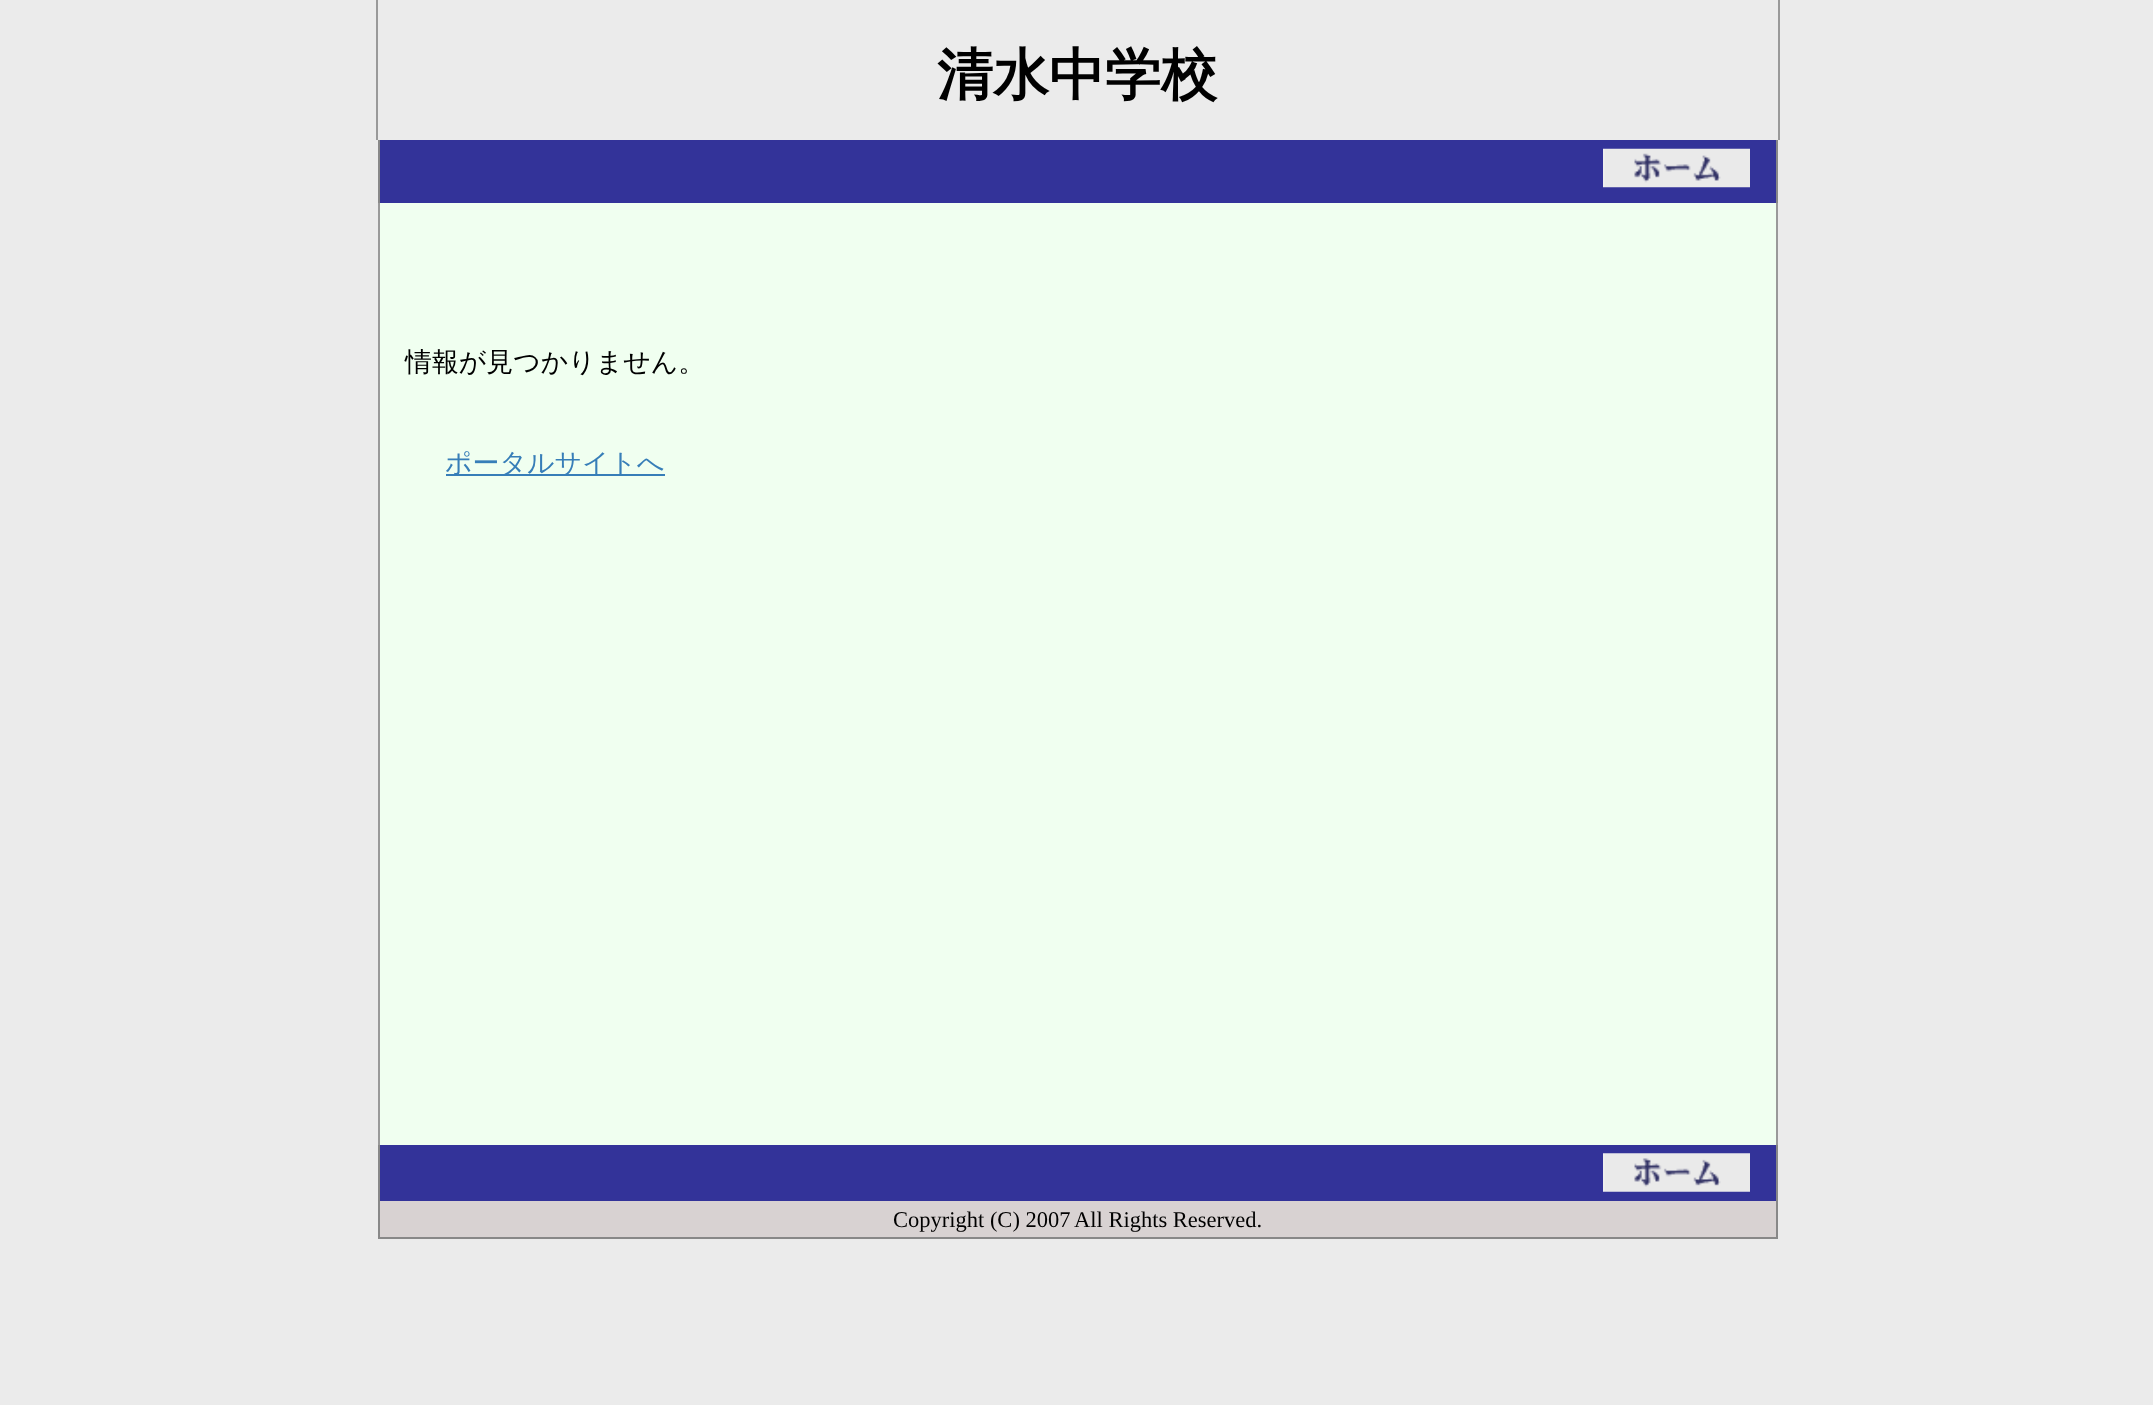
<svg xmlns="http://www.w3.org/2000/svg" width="2153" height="1405">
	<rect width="100%" height="100%" fill="#EBEBEB" />
	<rect x="1778" y="0" width="2" height="140" fill="#999999" />
	<rect x="376" y="0" width="2" height="140" fill="#999999" />
	<text x="937" y="94" font-family="WenQuanYi Zen Hei" font-size="56" font-weight="700" fill="#000000">清水中学校</text>
	<rect x="380" y="140" width="1396" height="63" fill="#333399" />
	<rect x="1776" y="140" width="2" height="63" fill="#888888" />
	<rect x="378" y="140" width="2" height="63" fill="#888888" />
	<image x="1603" y="148" width="147" height="40" href="assets/img1.png" />
	<rect x="1776" y="203" width="2" height="942" fill="#999999" />
	<rect x="378" y="203" width="2" height="942" fill="#999999" />
	<rect x="380" y="203" width="1396" height="942" fill="#F0FFF0" />
	<text x="405" y="371" font-family="WenQuanYi Zen Hei" font-size="26.9" font-weight="500" fill="#000000">情報が見つかりません。</text>
	<rect x="446" y="474" width="219" height="2" fill="#377EB8" />
	<text x="445" y="472" font-family="WenQuanYi Zen Hei" font-size="26.9" font-weight="500" fill="#377EB8">ポータルサイトへ</text>
	<rect x="380" y="1145" width="1396" height="56" fill="#333399" />
	<rect x="1776" y="1145" width="2" height="94" fill="#888888" />
	<rect x="378" y="1145" width="2" height="56" fill="#888888" />
	<image x="1603" y="1153" width="147" height="39" href="assets/img2.png" />
	<rect x="380" y="1201" width="1396" height="36" fill="#D8D2D2" />
	<rect x="378" y="1237" width="1400" height="2" fill="#888888" />
	<rect x="378" y="1201" width="2" height="38" fill="#888888" />
	<g font-family="Liberation Serif" font-size="22.5" fill="#000000">
		<text x="893" y="1227">Copyright (C) 2007</text>
		<text x="1074" y="1227">All Rights Reserved.</text>
	</g>
</svg>
